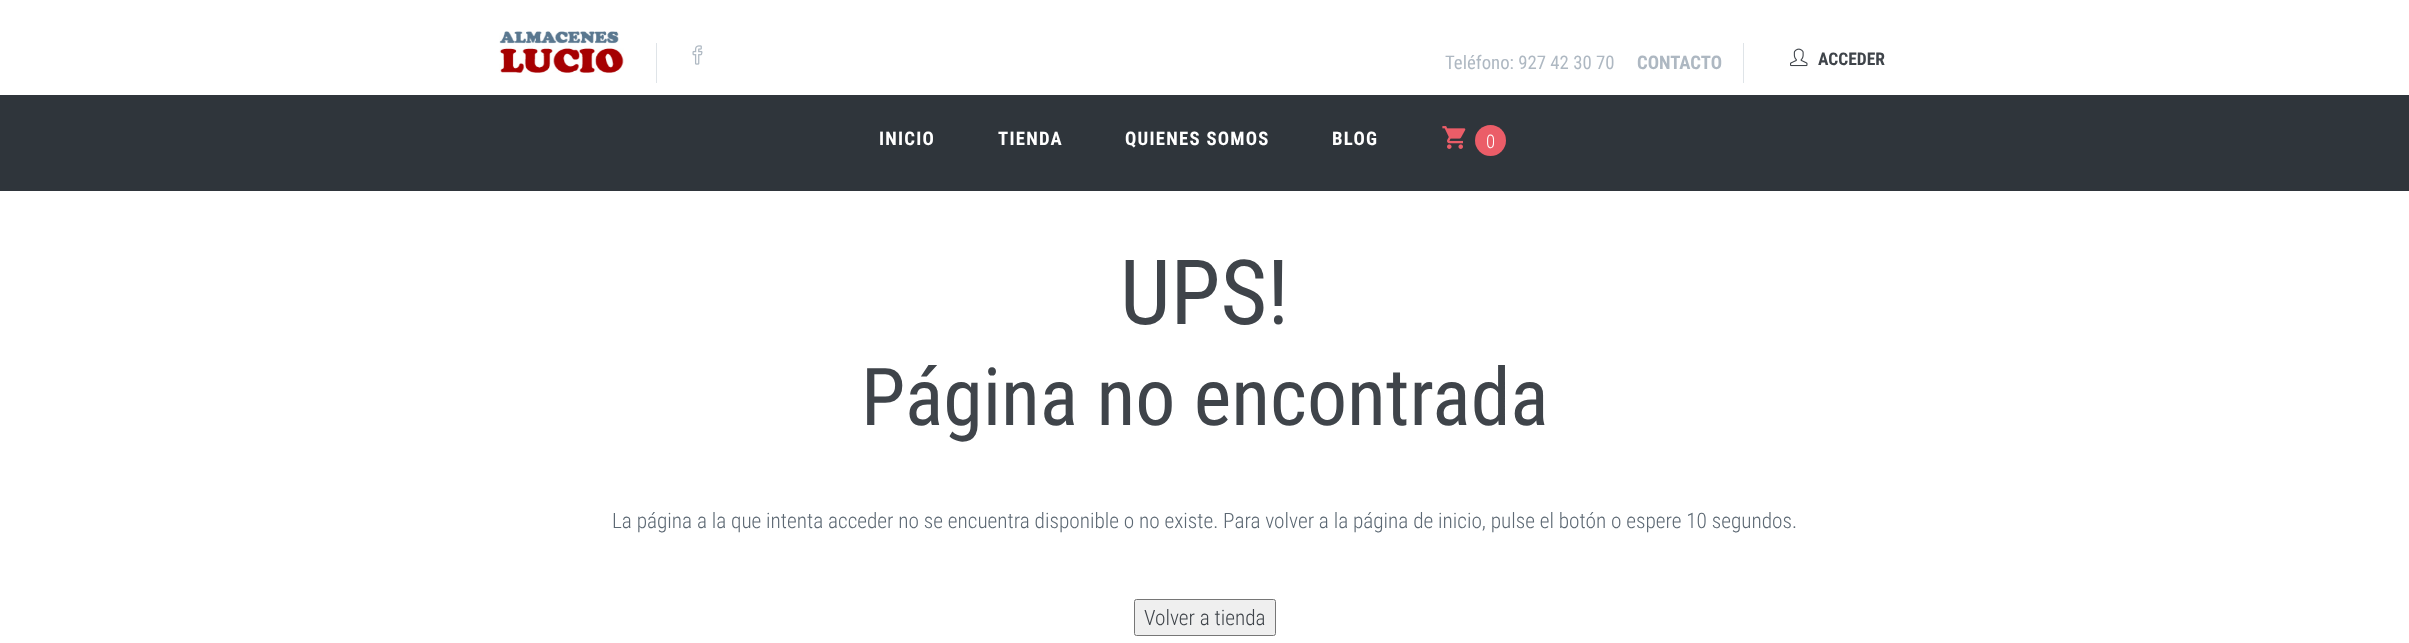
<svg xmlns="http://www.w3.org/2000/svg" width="2409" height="643">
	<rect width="100%" height="100%" fill="#FFFFFF" />
	<rect x="0" y="95" width="2409" height="96" fill="#2F353B" />
	<image x="499" y="31" width="125" height="42" href="assets/img1.png" />
	<rect x="656" y="43" width="1" height="40" fill="#DFE4E8" />
	<image x="692" y="45" width="11" height="20" href="assets/img2.png" />
	<text x="1445" y="69" font-family="Roboto Condensed" font-size="18.75" fill="#AEB8C2">Teléfono: 927 42 30 70</text>
	<text x="1637" y="69" font-family="Roboto Condensed" font-size="18.75" font-weight="700" fill="#AEB8C2">CONTACTO</text>
	<rect x="1743" y="43" width="1" height="40" fill="#DFE4E8" />
	<image x="1790" y="48" width="18" height="19" href="assets/img3.png" />
	<text x="1818" y="65" font-family="Roboto Condensed" font-size="17.5" font-weight="700" fill="#3F444A">ACCEDER</text>
	<g font-family="Roboto Condensed" font-size="18.75" font-weight="700" letter-spacing="1.25" fill="#FFFFFF">
		<text x="879" y="145">INICIO</text>
		<text x="998" y="145">TIENDA</text>
		<text x="1125" y="145">QUIENES SOMOS</text>
		<text x="1332" y="145">BLOG</text>
	</g>
	<image x="1442" y="126" width="24" height="23" href="assets/img4.png" />
	<circle cx="1490.5" cy="140.5" r="15.5" fill="#EB5D68" />
	<text x="1486" y="148" font-family="Roboto Condensed" font-size="18.75" font-weight="300" fill="#FFFFFF">0</text>
	<text x="1120" y="324" font-family="Roboto Condensed" font-size="90" fill="#3F444A">UPS!</text>
	<text x="861" y="425" font-family="Roboto Condensed" font-size="80" fill="#3F444A">Página no encontrada</text>
	<text x="612" y="528" font-family="Roboto Condensed" font-size="21.25" font-weight="300" fill="#5C6873">La página a la que intenta acceder no se encuentra disponible o no existe. Para volver a la página de inicio, pulse el botón o espere 10 segundos.</text>
	<rect x="1134.5" y="599.5" width="141" height="36" rx="2" fill="#EFEFEF" stroke="#767676" />
	<text x="1144" y="625" font-family="Roboto Condensed" font-size="21.25" font-weight="300" fill="#3F444A">Volver a tienda</text>
</svg>
